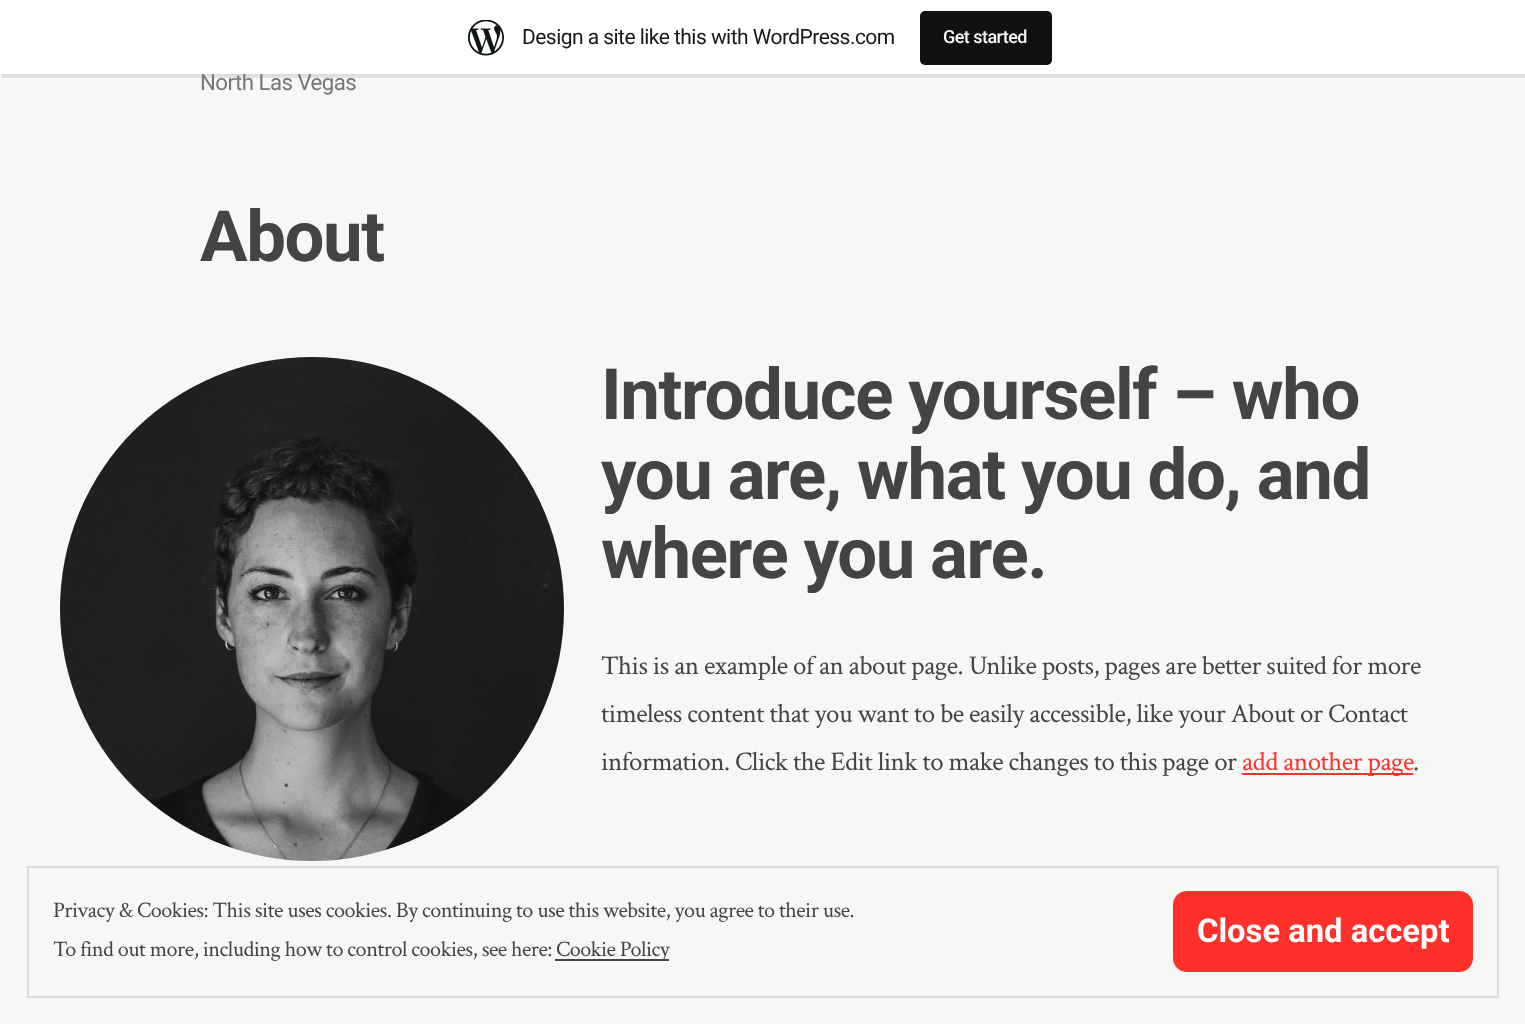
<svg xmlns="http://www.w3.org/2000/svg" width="1525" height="1024">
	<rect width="100%" height="100%" fill="#F7F7F6" />
	<rect x="0" y="2" width="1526" height="73" fill="#000000" fill-opacity="0.05" filter="blur(1.5px)" />
	<path d="M2 74V78H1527V5H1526V74Z" fill="#000000" fill-opacity="0.08" />
	<text x="200" y="90" font-family="Roboto" font-size="22.25" letter-spacing="-0.54" fill="#767676">North Las Vegas</text>
	<rect x="0" y="0" width="1525" height="74" fill="#FFFFFF" />
	<image x="468" y="20" width="36" height="36" href="assets/img1.png" />
	<text x="522" y="44" font-family="Roboto" font-size="21" letter-spacing="-0.54" fill="#171717">Design a site like this with WordPress.com</text>
	<rect x="920" y="11" width="132" height="54" rx="5" fill="#111111" />
	<text x="943" y="43" font-family="Roboto" font-size="18" font-weight="500" letter-spacing="-0.54" fill="#F6F7F7">Get started</text>
	<text x="200" y="261" font-family="Roboto" font-size="70.75" font-weight="700" letter-spacing="-1.4" fill="#444444">About</text>
	<image x="60" y="357" width="504" height="504" href="assets/img2.png" />
	<g font-family="Roboto" font-size="70.75" font-weight="700" letter-spacing="-1.4" fill="#444444">
		<text x="601" y="419">Introduce yourself – who</text>
		<text x="601" y="499">you are, what you do, and</text>
		<text x="601" y="578">where you are.</text>
	</g>
	<g font-family="Crimson Text" font-size="27" letter-spacing="-0.54" fill="#444444">
		<text x="601" y="674">This is an example of an about page. Unlike posts, pages are better suited for more</text>
		<text x="601" y="722">timeless content that you want to be easily accessible, like your About or Contact</text>
		<text x="601" y="770">information. Click the Edit link to make changes to this page or</text>
	</g>
	<rect x="1242" y="773" width="171" height="2" fill="#FF302C" />
	<text x="1242" y="770" font-family="Crimson Text" font-size="27" letter-spacing="-0.54" fill="#FF302C">add another page</text>
	<text x="1413" y="770" font-family="Crimson Text" font-size="27" letter-spacing="-0.54" fill="#444444">.</text>
	<rect x="28" y="867" width="1470" height="130" fill="none" stroke="#DDDDDD" stroke-width="2" />
	<g font-family="Crimson Text" font-size="22.25" letter-spacing="-0.54" fill="#444444">
		<text x="53" y="917">Privacy &amp; Cookies: This site uses cookies. By continuing to use this website, you agree to their use.</text>
		<text x="53" y="956">To find out more, including how to control cookies, see here:</text>
	</g>
	<rect x="555" y="959" width="114" height="2" fill="#444444" />
	<text x="556" y="956" font-family="Crimson Text" font-size="22.25" letter-spacing="-0.54" fill="#444444">Cookie Policy</text>
	<rect x="1173" y="891" width="300" height="81" rx="14" fill="#FF302C" />
	<text x="1197" y="942" font-family="Roboto" font-size="32.75" font-weight="700" fill="#FFFFFF">Close and accept</text>
</svg>
